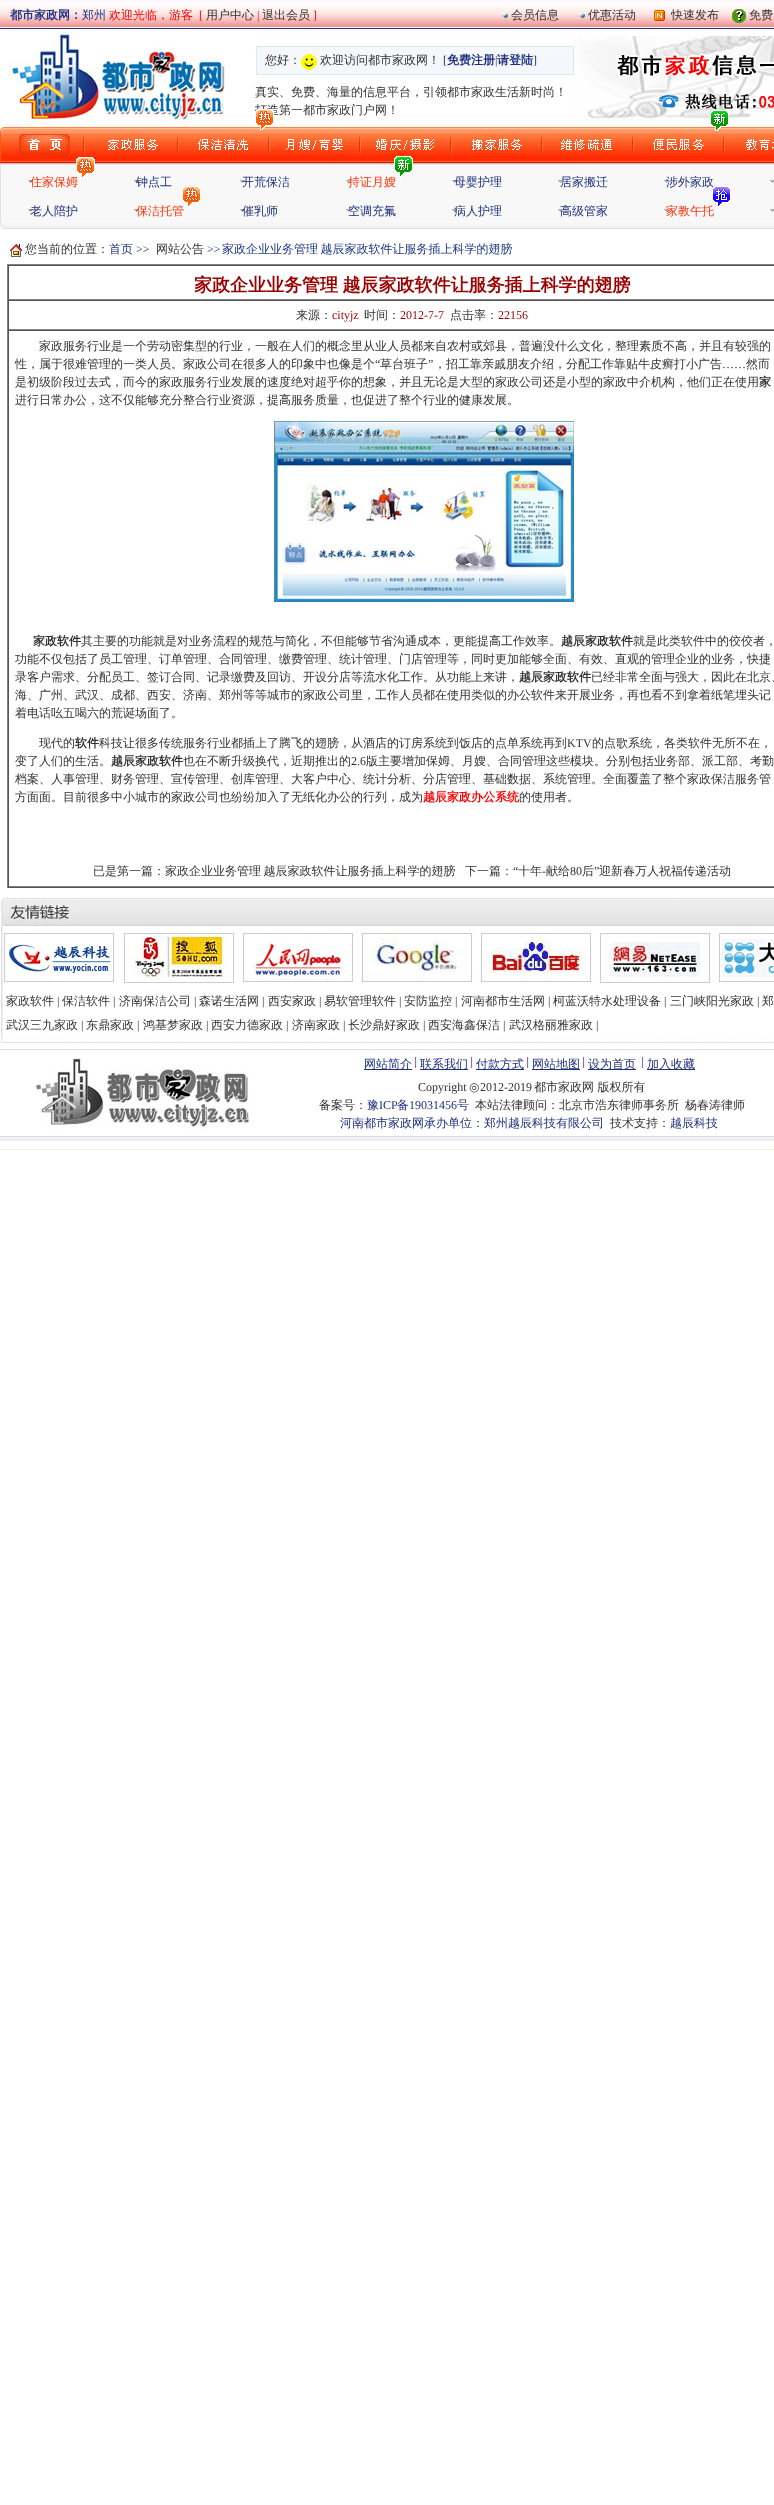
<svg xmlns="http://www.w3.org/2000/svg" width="774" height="2505">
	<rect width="100%" height="100%" fill="#FFFFFF" />
	<image x="0" y="0" width="774" height="29" href="assets/img1.png" />
	<text x="10" y="19" font-family="WenQuanYi Zen Hei" font-size="12" font-weight="700" fill="#1E2F7F">都市家政网：</text>
	<text x="82" y="19" font-family="WenQuanYi Zen Hei" font-size="12" font-weight="500" fill="#1E2F7F">郑州</text>
	<text x="109" y="19" font-family="WenQuanYi Zen Hei" font-size="12" font-weight="500" fill="#FF0000">欢迎光临，游客</text>
	<text x="199" y="19" font-family="Liberation Serif" font-size="12" fill="#FF0000">[</text>
	<text x="206" y="19" font-family="WenQuanYi Zen Hei" font-size="12" font-weight="500" fill="#333333">用户中心</text>
	<text x="257" y="19" font-family="Liberation Serif" font-size="12" fill="#FF0000">|</text>
	<text x="262" y="19" font-family="WenQuanYi Zen Hei" font-size="12" font-weight="500" fill="#333333">退出会员</text>
	<text x="313" y="19" font-family="Liberation Serif" font-size="12" fill="#FF0000">]</text>
	<image x="503" y="13" width="5" height="5" href="assets/img2.png" />
	<text x="511" y="19" font-family="WenQuanYi Zen Hei" font-size="12" font-weight="500" fill="#333333">会员信息</text>
	<image x="580" y="13" width="5" height="5" href="assets/img2.png" />
	<text x="588" y="19" font-family="WenQuanYi Zen Hei" font-size="12" font-weight="500" fill="#333333">优惠活动</text>
	<image x="654" y="10" width="11" height="11" href="assets/img3.png" />
	<text x="671" y="19" font-family="WenQuanYi Zen Hei" font-size="12" font-weight="500" fill="#333333">快速发布</text>
	<image x="732" y="9" width="14" height="14" href="assets/img4.png" />
	<text x="749" y="19" font-family="WenQuanYi Zen Hei" font-size="12" font-weight="500" fill="#333333">免费</text>
	<image x="8" y="29" width="217" height="96" href="assets/img5.png" />
	<image x="255" y="46" width="10" height="29" href="assets/img6.png" />
	<image x="265" y="46" width="307" height="29" href="assets/img7.png" />
	<text x="265" y="64" font-family="WenQuanYi Zen Hei" font-size="12" font-weight="500" fill="#333333">您好：</text>
	<image x="301" y="54" width="16" height="16" href="assets/img8.png" />
	<text x="320" y="64" font-family="WenQuanYi Zen Hei" font-size="12" font-weight="500" fill="#333333">欢迎访问都市家政网！</text>
	<text x="443" y="64" font-family="Liberation Serif" font-size="12" fill="#333333">[</text>
	<text x="447" y="64" font-family="WenQuanYi Zen Hei" font-size="12" font-weight="700" fill="#1E2F7F">免费注册</text>
	<text x="495" y="64" font-family="Liberation Serif" font-size="12" fill="#333333">|</text>
	<text x="497" y="64" font-family="WenQuanYi Zen Hei" font-size="12" font-weight="700" fill="#1E2F7F">请登陆</text>
	<text x="533" y="64" font-family="Liberation Serif" font-size="12" fill="#333333">]</text>
	<image x="572" y="46" width="2" height="29" href="assets/img9.png" />
	<g font-family="WenQuanYi Zen Hei" font-size="12" font-weight="500" fill="#333333">
		<text x="255" y="96">真实、免费、海量的信息平台，引领都市家政生活新时尚！</text>
		<text x="255" y="114">打造第一都市家政门户网！</text>
	</g>
	<image x="574" y="36" width="200" height="85" href="assets/img10.png" />
	<image x="0" y="127" width="774" height="36" href="assets/img11.png" />
	<image x="0" y="127" width="5" height="35" href="assets/img12.png" />
	<image x="18" y="134" width="52" height="23" href="assets/img13.png" />
	<image x="83" y="135" width="2" height="21" href="assets/img14.png" />
	<image x="177" y="135" width="2" height="21" href="assets/img14.png" />
	<image x="255" y="109" width="19" height="21" href="assets/img15.png" />
	<image x="189" y="137" width="67" height="15" href="assets/img16.png" />
	<image x="710" y="110" width="19" height="21" href="assets/img17.png" />
	<image x="644" y="135" width="64" height="19" href="assets/img18.png" />
	<image x="98" y="138" width="67" height="14" href="assets/img19.png" />
	<image x="268" y="135" width="2" height="21" href="assets/img14.png" />
	<image x="280" y="137" width="67" height="15" href="assets/img20.png" />
	<image x="359" y="135" width="2" height="21" href="assets/img14.png" />
	<image x="371" y="138" width="67" height="14" href="assets/img21.png" />
	<image x="450" y="135" width="2" height="21" href="assets/img14.png" />
	<image x="470" y="135" width="56" height="19" href="assets/img22.png" />
	<image x="541" y="135" width="2" height="21" href="assets/img14.png" />
	<image x="553" y="138" width="67" height="14" href="assets/img23.png" />
	<image x="632" y="135" width="2" height="21" href="assets/img14.png" />
	<image x="723" y="135" width="2" height="21" href="assets/img14.png" />
	<image x="736" y="135" width="38" height="16" href="assets/img24.png" />
	<image x="0" y="163" width="3" height="65" href="assets/img25.png" />
	<image x="3" y="163" width="771" height="66" href="assets/img26.png" />
	<image x="24" y="169" width="106" height="14" href="assets/img27.png" />
	<text x="30" y="186" font-family="WenQuanYi Zen Hei" font-size="12" font-weight="500" fill="#FF3307">住家保姆</text>
	<image x="76" y="157" width="19" height="21" href="assets/img28.png" />
	<image x="130" y="169" width="106" height="14" href="assets/img27.png" />
	<text x="136" y="186" font-family="WenQuanYi Zen Hei" font-size="12" font-weight="500" fill="#1E2F7F">钟点工</text>
	<image x="236" y="169" width="106" height="14" href="assets/img27.png" />
	<text x="242" y="186" font-family="WenQuanYi Zen Hei" font-size="12" font-weight="500" fill="#1E2F7F">开荒保洁</text>
	<image x="342" y="169" width="106" height="14" href="assets/img27.png" />
	<text x="348" y="186" font-family="WenQuanYi Zen Hei" font-size="12" font-weight="500" fill="#FF3307">持证月嫂</text>
	<image x="394" y="156" width="19" height="21" href="assets/img29.png" />
	<image x="448" y="169" width="106" height="14" href="assets/img27.png" />
	<text x="454" y="186" font-family="WenQuanYi Zen Hei" font-size="12" font-weight="500" fill="#1E2F7F">母婴护理</text>
	<image x="554" y="169" width="106" height="14" href="assets/img27.png" />
	<text x="560" y="186" font-family="WenQuanYi Zen Hei" font-size="12" font-weight="500" fill="#1E2F7F">居家搬迁</text>
	<image x="660" y="169" width="106" height="14" href="assets/img27.png" />
	<text x="666" y="186" font-family="WenQuanYi Zen Hei" font-size="12" font-weight="500" fill="#1E2F7F">涉外家政</text>
	<image x="766" y="169" width="8" height="14" href="assets/img30.png" />
	<image x="25" y="205" width="14" height="7" href="assets/img31.png" />
	<text x="30" y="215" font-family="WenQuanYi Zen Hei" font-size="12" font-weight="500" fill="#1E2F7F">老人陪护</text>
	<image x="131" y="205" width="14" height="7" href="assets/img31.png" />
	<text x="136" y="215" font-family="WenQuanYi Zen Hei" font-size="12" font-weight="500" fill="#FF3307">保洁托管</text>
	<image x="182" y="186" width="19" height="21" href="assets/img32.png" />
	<image x="237" y="205" width="14" height="7" href="assets/img31.png" />
	<text x="242" y="215" font-family="WenQuanYi Zen Hei" font-size="12" font-weight="500" fill="#1E2F7F">催乳师</text>
	<image x="343" y="205" width="14" height="7" href="assets/img31.png" />
	<text x="348" y="215" font-family="WenQuanYi Zen Hei" font-size="12" font-weight="500" fill="#1E2F7F">空调充氟</text>
	<image x="449" y="205" width="14" height="7" href="assets/img31.png" />
	<text x="454" y="215" font-family="WenQuanYi Zen Hei" font-size="12" font-weight="500" fill="#1E2F7F">病人护理</text>
	<image x="555" y="205" width="14" height="7" href="assets/img31.png" />
	<text x="560" y="215" font-family="WenQuanYi Zen Hei" font-size="12" font-weight="500" fill="#1E2F7F">高级管家</text>
	<image x="661" y="205" width="14" height="7" href="assets/img31.png" />
	<text x="666" y="215" font-family="WenQuanYi Zen Hei" font-size="12" font-weight="500" fill="#FF3307">家教午托</text>
	<image x="712" y="186" width="19" height="21" href="assets/img33.png" />
	<image x="767" y="205" width="7" height="7" href="assets/img34.png" />
	<image x="10" y="244" width="12" height="13" href="assets/img35.png" />
	<text x="25" y="253" font-family="WenQuanYi Zen Hei" font-size="12" font-weight="500" fill="#333333">您当前的位置：</text>
	<text x="109" y="253" font-family="WenQuanYi Zen Hei" font-size="12" font-weight="500" fill="#1C3881">首页</text>
	<text x="136" y="253" font-family="Liberation Serif" font-size="12" fill="#1C3881">&gt;&gt;</text>
	<text x="156" y="253" font-family="WenQuanYi Zen Hei" font-size="12" font-weight="500" fill="#333333">网站公告</text>
	<text x="207" y="253" font-family="Liberation Serif" font-size="12" fill="#1C3881">&gt;&gt;</text>
	<text x="222" y="253" word-spacing="-1" font-family="WenQuanYi Zen Hei" font-size="12" font-weight="500" fill="#1C3881">家政企业业务管理 越辰家政软件让服务插上科学的翅膀</text>
	<rect x="7" y="264" width="767" height="1" fill="#808080" />
	<rect x="7" y="887" width="767" height="1" fill="#555555" />
	<rect x="7" y="264" width="1" height="624" fill="#808080" />
	<rect x="8" y="265" width="766" height="1" fill="#555555" />
	<rect x="8" y="299" width="766" height="1" fill="#808080" />
	<rect x="8" y="265" width="1" height="35" fill="#555555" />
	<text x="194" y="291" word-spacing="-1" font-family="WenQuanYi Zen Hei" font-size="18" font-weight="700" fill="#990000">家政企业业务管理 越辰家政软件让服务插上科学的翅膀</text>
	<rect x="8" y="300" width="766" height="1" fill="#555555" />
	<rect x="8" y="329" width="766" height="1" fill="#808080" />
	<rect x="8" y="300" width="1" height="30" fill="#555555" />
	<text x="296" y="319" font-family="WenQuanYi Zen Hei" font-size="12" font-weight="500" fill="#333333">来源：</text>
	<text x="332" y="319" font-family="Liberation Serif" font-size="12" fill="#990000">cityjz</text>
	<text x="364" y="319" font-family="WenQuanYi Zen Hei" font-size="12" font-weight="500" fill="#333333">时间：</text>
	<text x="400" y="319" font-family="Liberation Serif" font-size="12" fill="#990000">2012-7-7</text>
	<text x="450" y="319" font-family="WenQuanYi Zen Hei" font-size="12" font-weight="500" fill="#333333">点击率：</text>
	<text x="498" y="319" font-family="Liberation Serif" font-size="12" fill="#990000">22156</text>
	<rect x="8" y="330" width="766" height="1" fill="#555555" />
	<rect x="8" y="886" width="766" height="1" fill="#808080" />
	<rect x="8" y="330" width="1" height="557" fill="#555555" />
	<g font-family="WenQuanYi Zen Hei" font-size="12" font-weight="500" fill="#333333">
		<text x="39" y="350">家政服务行业是一个劳动密集型的行业，一般在人们的概念里从业人员都来自农村或郊县，普遍没什么文化，整理素质不高，并且有较强的</text>
		<text x="15" y="368">性，属于很难管理的一类人员。家政公司在很多人的印象中也像是个</text>
	</g>
	<text x="375" y="368" font-family="Liberation Serif" font-size="12" fill="#333333">“</text>
	<text x="380" y="368" font-family="WenQuanYi Zen Hei" font-size="12" font-weight="500" fill="#333333">草台班子</text>
	<text x="428" y="368" font-family="Liberation Serif" font-size="12" fill="#333333">”</text>
	<g font-family="WenQuanYi Zen Hei" font-size="12" font-weight="500" fill="#333333">
		<text x="434" y="368">，招工靠亲戚朋友介绍，分配工作靠贴牛皮癣打小广告</text>
		<text x="746" y="368">然而</text>
	</g>
	<text x="722" y="368" font-family="Liberation Serif" font-size="12" fill="#333333">……</text>
	<text x="15" y="386" font-family="WenQuanYi Zen Hei" font-size="12" font-weight="500" fill="#333333">是初级阶段过去式，而今的家政服务行业发展的速度绝对超乎你的想象，并且无论是大型的家政公司还是小型的家政中介机构，他们正在使用</text>
	<text x="759" y="386" font-family="WenQuanYi Zen Hei" font-size="12" font-weight="700" fill="#333333">家</text>
	<text x="15" y="404" font-family="WenQuanYi Zen Hei" font-size="12" font-weight="500" fill="#333333">进行日常办公，这不仅能够充分整合行业资源，提高服务质量，也促进了整个行业的健康发展。</text>
	<image x="274" y="421" width="300" height="181" href="assets/img36.png" />
	<text x="33" y="645" font-family="WenQuanYi Zen Hei" font-size="12" font-weight="700" fill="#333333">家政软件</text>
	<text x="81" y="645" font-family="WenQuanYi Zen Hei" font-size="12" font-weight="500" fill="#333333">其主要的功能就是对业务流程的规范与简化，不但能够节省沟通成本，更能提高工作效率。</text>
	<text x="561" y="645" font-family="WenQuanYi Zen Hei" font-size="12" font-weight="700" fill="#333333">越辰家政软件</text>
	<g font-family="WenQuanYi Zen Hei" font-size="12" font-weight="500" fill="#333333">
		<text x="633" y="645">就是此类软件中的佼佼者，</text>
		<text x="15" y="663">功能不仅包括了员工管理、订单管理、合同管理、缴费管理、统计管理、门店管理等，同时更加能够全面、有效、直观的管理企业的业务，快捷</text>
		<text x="15" y="681">录客户需求、分配员工、签订合同、记录缴费及回访、开设分店等流水化工作。从功能上来讲，</text>
	</g>
	<text x="519" y="681" font-family="WenQuanYi Zen Hei" font-size="12" font-weight="700" fill="#333333">越辰家政软件</text>
	<g font-family="WenQuanYi Zen Hei" font-size="12" font-weight="500" fill="#333333">
		<text x="591" y="681">已经非常全面与强大，因此在北京、</text>
		<text x="15" y="699">海、广州、武汉、成都、西安、济南、郑州等等城市的家政公司里，工作人员都在使用类似的办公软件来开展业务，再也看不到拿着纸笔埋头记</text>
		<text x="15" y="717">着电话吆五喝六的荒诞场面了。</text>
		<text x="39" y="747">现代的</text>
	</g>
	<text x="75" y="747" font-family="WenQuanYi Zen Hei" font-size="12" font-weight="700" fill="#333333">软件</text>
	<text x="99" y="747" font-family="WenQuanYi Zen Hei" font-size="12" font-weight="500" fill="#333333">科技让很多传统服务行业都插上了腾飞的翅膀，从酒店的订房系统到饭店的点单系统再到</text>
	<text x="567" y="747" font-family="Liberation Serif" font-size="12" fill="#333333">KTV</text>
	<g font-family="WenQuanYi Zen Hei" font-size="12" font-weight="500" fill="#333333">
		<text x="592" y="747">的点歌系统，各类软件无所不在，</text>
		<text x="15" y="765">变了人们的生活。</text>
	</g>
	<text x="111" y="765" font-family="WenQuanYi Zen Hei" font-size="12" font-weight="700" fill="#333333">越辰家政软件</text>
	<text x="183" y="765" font-family="WenQuanYi Zen Hei" font-size="12" font-weight="500" fill="#333333">也在不断升级换代，近期推出的</text>
	<text x="351" y="765" font-family="Liberation Serif" font-size="12" fill="#333333">2.6</text>
	<g font-family="WenQuanYi Zen Hei" font-size="12" font-weight="500" fill="#333333">
		<text x="366" y="765">版主要增加保姆、月嫂、合同管理这些模块。分别包括业务部、派工部、考勤</text>
		<text x="15" y="783">档案、人事管理、财务管理、宣传管理、创库管理、大客户中心、统计分析、分店管理、基础数据、系统管理。全面覆盖了整个家政保洁服务管</text>
		<text x="15" y="801">方面面。目前很多中小城市的家政公司也纷纷加入了无纸化办公的行列，成为</text>
	</g>
	<text x="423" y="801" font-family="WenQuanYi Zen Hei" font-size="12" font-weight="700" fill="#FF0000">越辰家政办公系统</text>
	<g font-family="WenQuanYi Zen Hei" font-size="12" font-weight="500" fill="#333333">
		<text x="519" y="801">的使用者。</text>
		<text x="93" y="875" word-spacing="-1">已是第一篇：家政企业业务管理 越辰家政软件让服务插上科学的翅膀</text>
		<text x="465" y="875">下一篇：</text>
	</g>
	<text x="513" y="875" font-family="Liberation Serif" font-size="12" fill="#333333">“</text>
	<g font-family="WenQuanYi Zen Hei" font-size="12" font-weight="500" fill="#333333">
		<text x="518" y="875">十年</text>
		<text x="546" y="875">献给</text>
	</g>
	<text x="570" y="875" font-family="Liberation Serif" font-size="12" fill="#333333">80</text>
	<text x="582" y="875" font-family="WenQuanYi Zen Hei" font-size="12" font-weight="500" fill="#333333">后</text>
	<text x="594" y="875" font-family="Liberation Serif" font-size="12" fill="#333333">”</text>
	<text x="599" y="875" font-family="WenQuanYi Zen Hei" font-size="12" font-weight="500" fill="#333333">迎新春万人祝福传递活动</text>
	<text x="542" y="875" font-family="Liberation Serif" font-size="12" fill="#333333">-</text>
	<image x="1" y="898" width="773" height="28" href="assets/img37.png" />
	<image x="1" y="926" width="2" height="63" href="assets/img38.png" />
	<image x="4" y="932" width="111" height="50" href="assets/img39.png" />
	<image x="122" y="931" width="113" height="53" href="assets/img40.png" />
	<image x="242" y="932" width="112" height="50" href="assets/img41.png" />
	<image x="362" y="932" width="111" height="50" href="assets/img42.png" />
	<image x="479" y="932" width="112" height="50" href="assets/img43.png" />
	<image x="598" y="931" width="113" height="53" href="assets/img44.png" />
	<image x="717" y="932" width="57" height="50" href="assets/img45.png" />
	<image x="1" y="989" width="2" height="48" href="assets/img46.png" />
	<text x="6" y="1005" font-family="WenQuanYi Zen Hei" font-size="12" font-weight="500" fill="#333333">家政软件</text>
	<text x="57" y="1005" font-family="Liberation Serif" font-size="12" fill="#333333">|</text>
	<text x="62" y="1005" font-family="WenQuanYi Zen Hei" font-size="12" font-weight="500" fill="#333333">保洁软件</text>
	<text x="113" y="1005" font-family="Liberation Serif" font-size="12" fill="#333333">|</text>
	<text x="119" y="1005" font-family="WenQuanYi Zen Hei" font-size="12" font-weight="500" fill="#333333">济南保洁公司</text>
	<text x="194" y="1005" font-family="Liberation Serif" font-size="12" fill="#333333">|</text>
	<text x="199" y="1005" font-family="WenQuanYi Zen Hei" font-size="12" font-weight="500" fill="#333333">森诺生活网</text>
	<text x="262" y="1005" font-family="Liberation Serif" font-size="12" fill="#333333">|</text>
	<text x="268" y="1005" font-family="WenQuanYi Zen Hei" font-size="12" font-weight="500" fill="#333333">西安家政</text>
	<text x="319" y="1005" font-family="Liberation Serif" font-size="12" fill="#333333">|</text>
	<text x="324" y="1005" font-family="WenQuanYi Zen Hei" font-size="12" font-weight="500" fill="#333333">易软管理软件</text>
	<text x="399" y="1005" font-family="Liberation Serif" font-size="12" fill="#333333">|</text>
	<text x="404" y="1005" font-family="WenQuanYi Zen Hei" font-size="12" font-weight="500" fill="#333333">安防监控</text>
	<text x="455" y="1005" font-family="Liberation Serif" font-size="12" fill="#333333">|</text>
	<text x="461" y="1005" font-family="WenQuanYi Zen Hei" font-size="12" font-weight="500" fill="#333333">河南都市生活网</text>
	<text x="548" y="1005" font-family="Liberation Serif" font-size="12" fill="#333333">|</text>
	<text x="553" y="1005" font-family="WenQuanYi Zen Hei" font-size="12" font-weight="500" fill="#333333">柯蓝沃特水处理设备</text>
	<text x="664" y="1005" font-family="Liberation Serif" font-size="12" fill="#333333">|</text>
	<text x="670" y="1005" font-family="WenQuanYi Zen Hei" font-size="12" font-weight="500" fill="#333333">三门峡阳光家政</text>
	<text x="757" y="1005" font-family="Liberation Serif" font-size="12" fill="#333333">|</text>
	<g font-family="WenQuanYi Zen Hei" font-size="12" font-weight="500" fill="#333333">
		<text x="762" y="1005">郑</text>
		<text x="6" y="1029">武汉三九家政</text>
	</g>
	<text x="81" y="1029" font-family="Liberation Serif" font-size="12" fill="#333333">|</text>
	<text x="86" y="1029" font-family="WenQuanYi Zen Hei" font-size="12" font-weight="500" fill="#333333">东鼎家政</text>
	<text x="137" y="1029" font-family="Liberation Serif" font-size="12" fill="#333333">|</text>
	<text x="143" y="1029" font-family="WenQuanYi Zen Hei" font-size="12" font-weight="500" fill="#333333">鸿基梦家政</text>
	<text x="206" y="1029" font-family="Liberation Serif" font-size="12" fill="#333333">|</text>
	<text x="211" y="1029" font-family="WenQuanYi Zen Hei" font-size="12" font-weight="500" fill="#333333">西安力德家政</text>
	<text x="286" y="1029" font-family="Liberation Serif" font-size="12" fill="#333333">|</text>
	<text x="292" y="1029" font-family="WenQuanYi Zen Hei" font-size="12" font-weight="500" fill="#333333">济南家政</text>
	<text x="343" y="1029" font-family="Liberation Serif" font-size="12" fill="#333333">|</text>
	<text x="348" y="1029" font-family="WenQuanYi Zen Hei" font-size="12" font-weight="500" fill="#333333">长沙鼎好家政</text>
	<text x="423" y="1029" font-family="Liberation Serif" font-size="12" fill="#333333">|</text>
	<text x="428" y="1029" font-family="WenQuanYi Zen Hei" font-size="12" font-weight="500" fill="#333333">西安海鑫保洁</text>
	<text x="503" y="1029" font-family="Liberation Serif" font-size="12" fill="#333333">|</text>
	<text x="509" y="1029" font-family="WenQuanYi Zen Hei" font-size="12" font-weight="500" fill="#333333">武汉格丽雅家政</text>
	<text x="596" y="1029" font-family="Liberation Serif" font-size="12" fill="#333333">|</text>
	<image x="1" y="1037" width="773" height="6" href="assets/img47.png" />
	<rect x="0" y="1049" width="774" height="1" fill="#DEDEDE" />
	<image x="35" y="1058" width="215" height="72" href="assets/img48.png" />
	<rect x="364" y="1069" width="48" height="1" fill="#1E2F7F" />
	<text x="364" y="1068" font-family="WenQuanYi Zen Hei" font-size="12" font-weight="500" fill="#1E2F7F">网站简介</text>
	<image x="415" y="1057" width="2" height="11" href="assets/img49.png" />
	<rect x="420" y="1069" width="48" height="1" fill="#1E2F7F" />
	<text x="420" y="1068" font-family="WenQuanYi Zen Hei" font-size="12" font-weight="500" fill="#1E2F7F">联系我们</text>
	<image x="471" y="1057" width="2" height="11" href="assets/img49.png" />
	<rect x="476" y="1069" width="48" height="1" fill="#1E2F7F" />
	<text x="476" y="1068" font-family="WenQuanYi Zen Hei" font-size="12" font-weight="500" fill="#1E2F7F">付款方式</text>
	<image x="527" y="1057" width="2" height="11" href="assets/img49.png" />
	<rect x="532" y="1069" width="48" height="1" fill="#1E2F7F" />
	<text x="532" y="1068" font-family="WenQuanYi Zen Hei" font-size="12" font-weight="500" fill="#1E2F7F">网站地图</text>
	<image x="583" y="1057" width="2" height="11" href="assets/img49.png" />
	<rect x="588" y="1069" width="48" height="1" fill="#1E2F7F" />
	<text x="588" y="1068" font-family="WenQuanYi Zen Hei" font-size="12" font-weight="500" fill="#1E2F7F">设为首页</text>
	<image x="642" y="1057" width="2" height="11" href="assets/img49.png" />
	<rect x="647" y="1069" width="48" height="1" fill="#1E2F7F" />
	<text x="647" y="1068" font-family="WenQuanYi Zen Hei" font-size="12" font-weight="500" fill="#1E2F7F">加入收藏</text>
	<text x="418" y="1091" font-family="Liberation Serif" font-size="12" fill="#333333">Copyright</text>
	<text x="469" y="1091" font-family="DejaVu Sans" font-size="12" fill="#333333">◎</text>
	<text x="480" y="1091" font-family="Liberation Serif" font-size="12" fill="#333333">2012-2019</text>
	<g font-family="WenQuanYi Zen Hei" font-size="12" font-weight="500" fill="#333333">
		<text x="534" y="1091">都市家政网 版权所有</text>
		<text x="319" y="1109">备案号：</text>
	</g>
	<text x="367" y="1109" font-family="WenQuanYi Zen Hei" font-size="12" font-weight="500" fill="#1E2F7F">豫</text>
	<text x="379" y="1109" font-family="Liberation Serif" font-size="12" fill="#1E2F7F">ICP</text>
	<text x="397" y="1109" font-family="WenQuanYi Zen Hei" font-size="12" font-weight="500" fill="#1E2F7F">备</text>
	<text x="409" y="1109" font-family="Liberation Serif" font-size="12" fill="#1E2F7F">19031456</text>
	<text x="457" y="1109" font-family="WenQuanYi Zen Hei" font-size="12" font-weight="500" fill="#1E2F7F">号</text>
	<g font-family="WenQuanYi Zen Hei" font-size="12" font-weight="500" fill="#333333">
		<text x="475" y="1109">本站法律顾问：北京市浩东律师事务所</text>
		<text x="685" y="1109">杨春涛律师</text>
	</g>
	<text x="340" y="1127" font-family="WenQuanYi Zen Hei" font-size="12" font-weight="500" fill="#1E2F7F">河南都市家政网承办单位：郑州越辰科技有限公司</text>
	<text x="610" y="1127" font-family="WenQuanYi Zen Hei" font-size="12" font-weight="500" fill="#333333">技术支持：</text>
	<text x="670" y="1127" font-family="WenQuanYi Zen Hei" font-size="12" font-weight="500" fill="#1E2F7F">越辰科技</text>
	<rect x="0" y="1136" width="774" height="1" fill="#DEDEDE" />
	<image x="0" y="1137" width="774" height="13" href="assets/img50.png" />
</svg>
